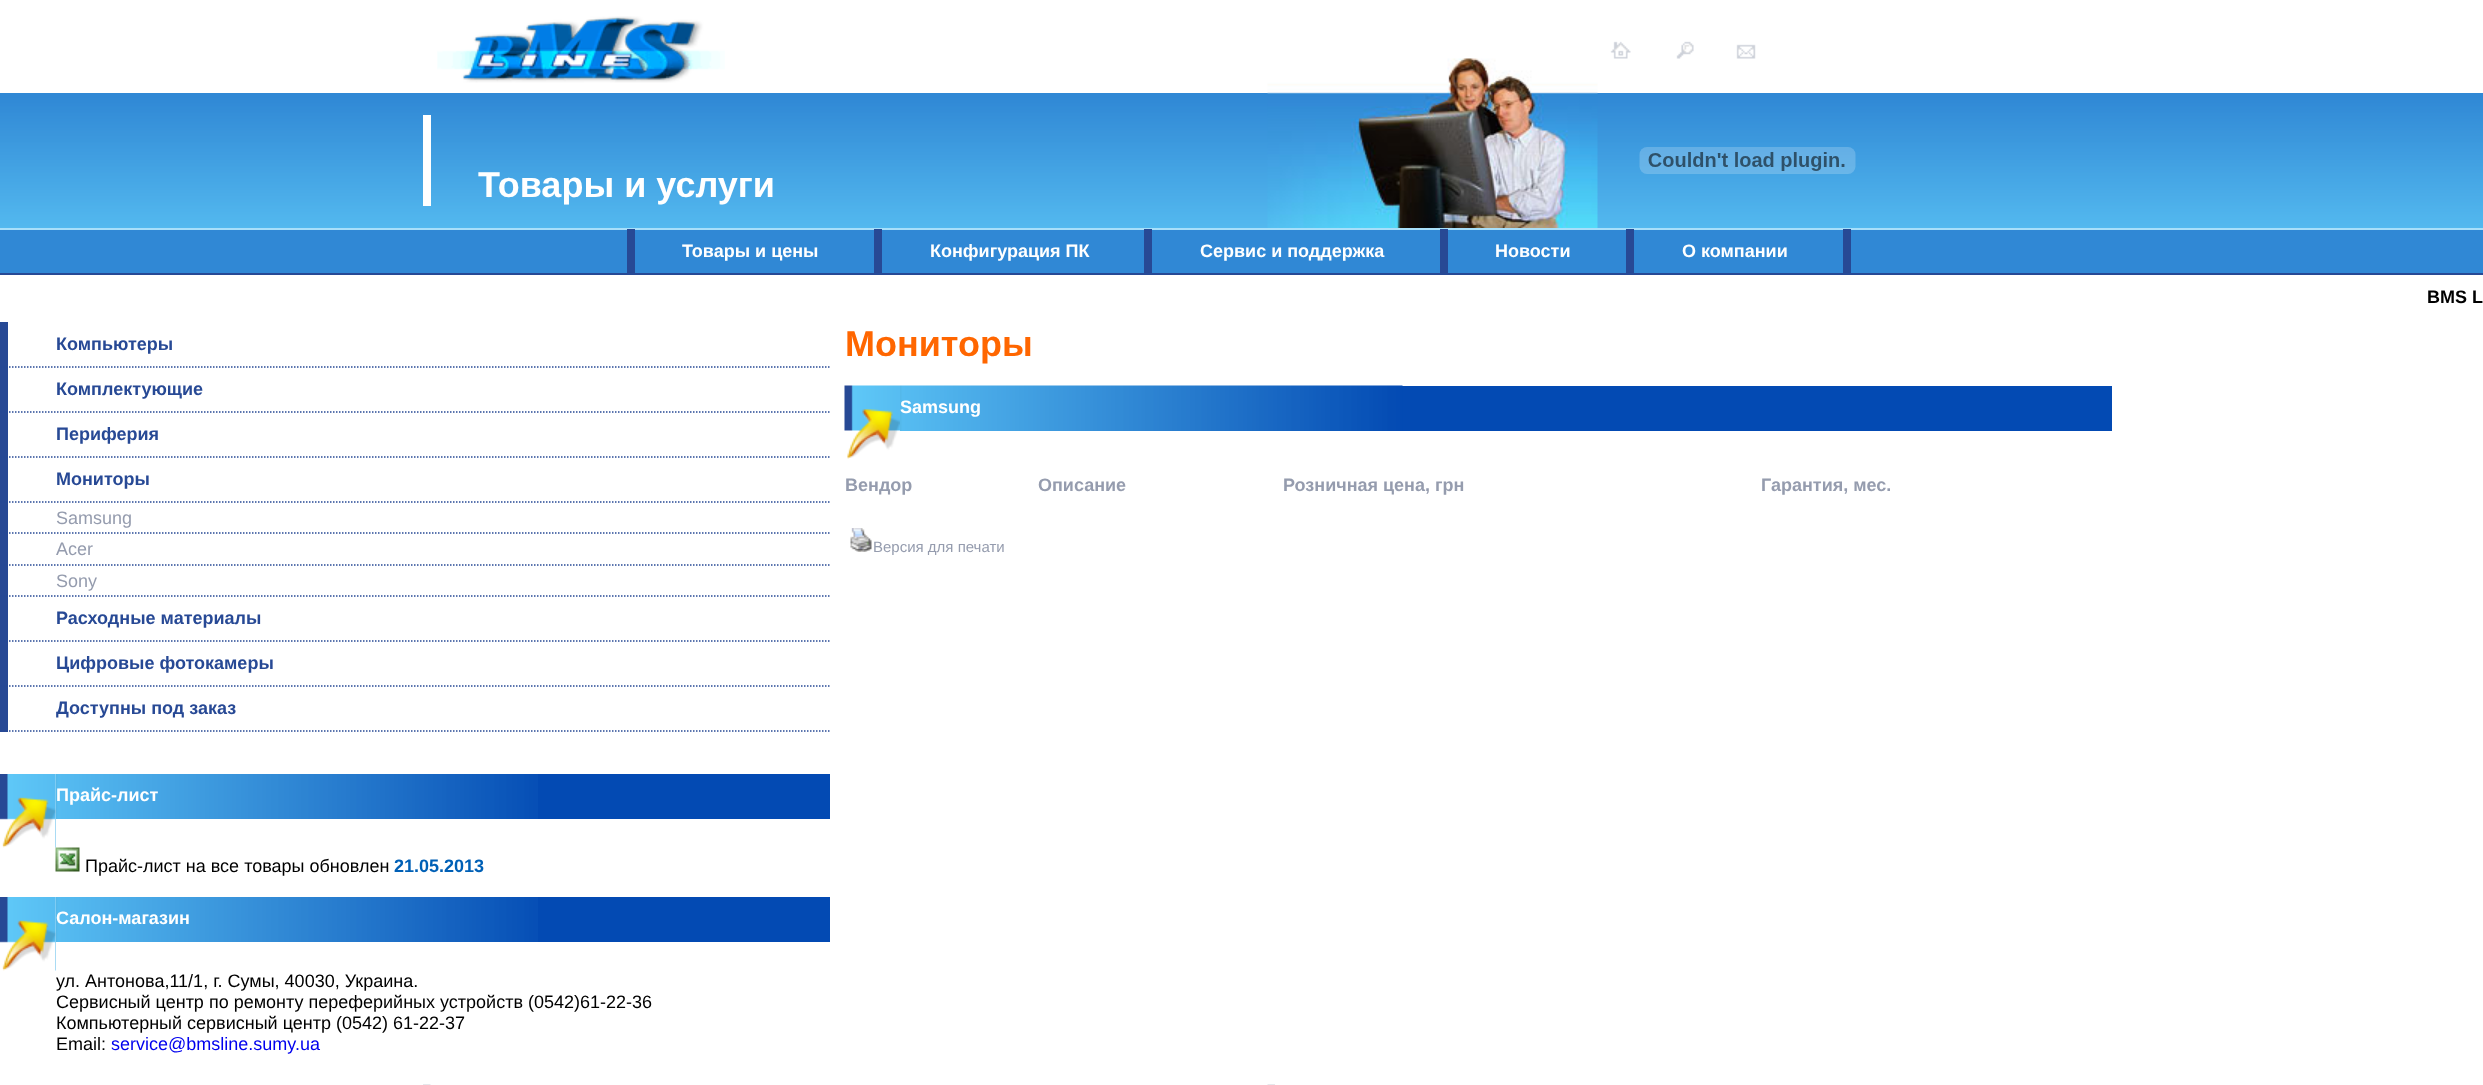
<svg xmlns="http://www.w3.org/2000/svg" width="2483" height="1085">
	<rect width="100%" height="100%" fill="#FFFFFF" />
	<image x="0" y="93" width="2483" height="135" href="assets/img1.png" />
	<image x="437" y="16" width="288" height="67" href="assets/img2.png" />
	<rect x="1268" y="228" width="1215" height="2" fill="#A8DFFA" />
	<image x="1610" y="41" width="21" height="18" href="assets/img3.png" />
	<image x="1676" y="41" width="18" height="18" href="assets/img4.png" />
	<image x="1736" y="44" width="20" height="15" href="assets/img5.png" />
	<image x="1267" y="58" width="331" height="170" href="assets/img6.png" />
	<image x="1639" y="147" width="217" height="27" href="assets/img7.png" />
	<rect x="423" y="115" width="8" height="91" fill="#FFFFFF" />
	<text x="478" y="197" font-family="Liberation Sans" font-size="36" font-weight="700" fill="#FFFFFF">Товары и услуги</text>
	<rect x="0" y="228" width="1268" height="2" fill="#A8DFFA" />
	<rect x="0" y="230" width="2483" height="43" fill="#3088D5" />
	<rect x="627" y="229" width="8" height="44" fill="#274995" />
	<text x="682" y="257" font-family="Liberation Sans" font-size="18" font-weight="700" fill="#FFFFFF">Товары и цены</text>
	<rect x="874" y="229" width="8" height="44" fill="#274995" />
	<text x="930" y="257" font-family="Liberation Sans" font-size="18" font-weight="700" fill="#FFFFFF">Конфигурация ПК</text>
	<rect x="1144" y="229" width="8" height="44" fill="#274995" />
	<text x="1200" y="257" font-family="Liberation Sans" font-size="18" font-weight="700" fill="#FFFFFF">Сервис и поддержка</text>
	<rect x="1440" y="229" width="8" height="44" fill="#274995" />
	<text x="1495" y="257" font-family="Liberation Sans" font-size="18" font-weight="700" fill="#FFFFFF">Новости</text>
	<rect x="1626" y="229" width="8" height="44" fill="#274995" />
	<text x="1682" y="257" font-family="Liberation Sans" font-size="18" font-weight="700" fill="#FFFFFF">О компании</text>
	<rect x="1843" y="229" width="8" height="44" fill="#274995" />
	<rect x="0" y="273" width="2483" height="2" fill="#274995" />
	<text x="2427" y="303" font-family="Liberation Sans" font-size="18" font-weight="700" fill="#000000">BMS L</text>
	<rect x="0" y="322" width="8" height="410" fill="#274995" />
	<path d="M0 367H829.5" fill="none" stroke="#274995" stroke-width="1.5" stroke-dasharray="1.5 1.5" />
	<text x="56" y="350" font-family="Liberation Sans" font-size="18" font-weight="700" fill="#274995">Компьютеры</text>
	<path d="M0 412H829.5" fill="none" stroke="#274995" stroke-width="1.5" stroke-dasharray="1.5 1.5" />
	<text x="56" y="395" font-family="Liberation Sans" font-size="18" font-weight="700" fill="#274995">Комплектующие</text>
	<path d="M0 457H829.5" fill="none" stroke="#274995" stroke-width="1.5" stroke-dasharray="1.5 1.5" />
	<text x="56" y="440" font-family="Liberation Sans" font-size="18" font-weight="700" fill="#274995">Периферия</text>
	<path d="M0 502H829.5" fill="none" stroke="#274995" stroke-width="1.5" stroke-dasharray="1.5 1.5" />
	<text x="56" y="485" font-family="Liberation Sans" font-size="18" font-weight="700" fill="#274995">Мониторы</text>
	<path d="M0 533H829.5" fill="none" stroke="#274995" stroke-width="1.5" stroke-dasharray="1.5 1.5" />
	<text x="56" y="524" font-family="Liberation Sans" font-size="18" fill="#959CAE">Samsung</text>
	<path d="M0 565H829.5" fill="none" stroke="#274995" stroke-width="1.5" stroke-dasharray="1.5 1.5" />
	<text x="56" y="555" font-family="Liberation Sans" font-size="18" fill="#959CAE">Acer</text>
	<path d="M0 596H829.5" fill="none" stroke="#274995" stroke-width="1.5" stroke-dasharray="1.5 1.5" />
	<text x="56" y="587" font-family="Liberation Sans" font-size="18" fill="#959CAE">Sony</text>
	<path d="M0 641H829.5" fill="none" stroke="#274995" stroke-width="1.5" stroke-dasharray="1.5 1.5" />
	<text x="56" y="624" font-family="Liberation Sans" font-size="18" font-weight="700" fill="#274995">Расходные материалы</text>
	<path d="M0 686H829.5" fill="none" stroke="#274995" stroke-width="1.5" stroke-dasharray="1.5 1.5" />
	<text x="56" y="669" font-family="Liberation Sans" font-size="18" font-weight="700" fill="#274995">Цифровые фотокамеры</text>
	<path d="M0 731H829.5" fill="none" stroke="#274995" stroke-width="1.5" stroke-dasharray="1.5 1.5" />
	<text x="56" y="714" font-family="Liberation Sans" font-size="18" font-weight="700" fill="#274995">Доступны под заказ</text>
	<image x="55" y="774" width="483" height="74" href="assets/img9.png" />
	<image x="0" y="774" width="56" height="74" href="assets/img8.png" />
	<rect x="538" y="774" width="292" height="45" fill="#034AB3" />
	<rect x="56" y="819" width="482" height="29" fill="#FFFFFF" />
	<text x="56" y="801" font-family="Liberation Sans" font-size="18" font-weight="700" fill="#FFFFFF">Прайс-лист</text>
	<image x="55" y="847" width="25" height="25" href="assets/img10.png" />
	<text x="85" y="872" font-family="Liberation Sans" font-size="18" fill="#000000">Прайс-лист на все товары обновлен</text>
	<text x="394" y="872" font-family="Liberation Sans" font-size="18" font-weight="700" fill="#0060B6">21.05.2013</text>
	<image x="55" y="897" width="483" height="74" href="assets/img9.png" />
	<image x="0" y="897" width="56" height="74" href="assets/img8.png" />
	<rect x="538" y="897" width="292" height="45" fill="#034AB3" />
	<rect x="56" y="942" width="482" height="29" fill="#FFFFFF" />
	<text x="56" y="924" font-family="Liberation Sans" font-size="18" font-weight="700" fill="#FFFFFF">Салон-магазин</text>
	<g font-family="Liberation Sans" font-size="18" fill="#000000">
		<text x="56" y="987">ул. Aнтонова,11/1, г. Сумы, 40030, Украина.</text>
		<text x="56" y="1008">Сервисный центр по ремонту переферийных устройств (0542)61-22-36</text>
		<text x="56" y="1029">Компьютерный сервисный центр (0542) 61-22-37</text>
		<text x="56" y="1050">Email:</text>
	</g>
	<text x="111" y="1050" font-family="Liberation Sans" font-size="18" fill="#0000EE">service@bmsline.sumy.ua</text>
	<text x="845" y="356" font-family="Liberation Sans" font-size="36" font-weight="700" fill="#FF6600">Мониторы</text>
	<image x="844" y="385" width="56" height="74" href="assets/img11.png" />
	<rect x="1402" y="386" width="710" height="45" fill="#034AB3" />
	<image x="900" y="385" width="503" height="46" href="assets/img12.png" />
	<text x="900" y="413" font-family="Liberation Sans" font-size="18" font-weight="700" fill="#FFFFFF">Samsung</text>
	<g font-family="Liberation Sans" font-size="18" font-weight="700" fill="#959CAE">
		<text x="845" y="491">Вендор</text>
		<text x="1038" y="491">Описание</text>
		<text x="1283" y="491">Розничная цена, грн</text>
		<text x="1761" y="491">Гарантия, мес.</text>
	</g>
	<image x="850" y="528" width="22" height="24" href="assets/img13.png" />
	<text x="873" y="552" font-family="Liberation Sans" font-size="15" fill="#959CAE">Версия для печати</text>
	<image x="423" y="1084" width="8" height="1" href="assets/img14.png" />
	<image x="1267" y="1084" width="8" height="1" href="assets/img15.png" />
</svg>
